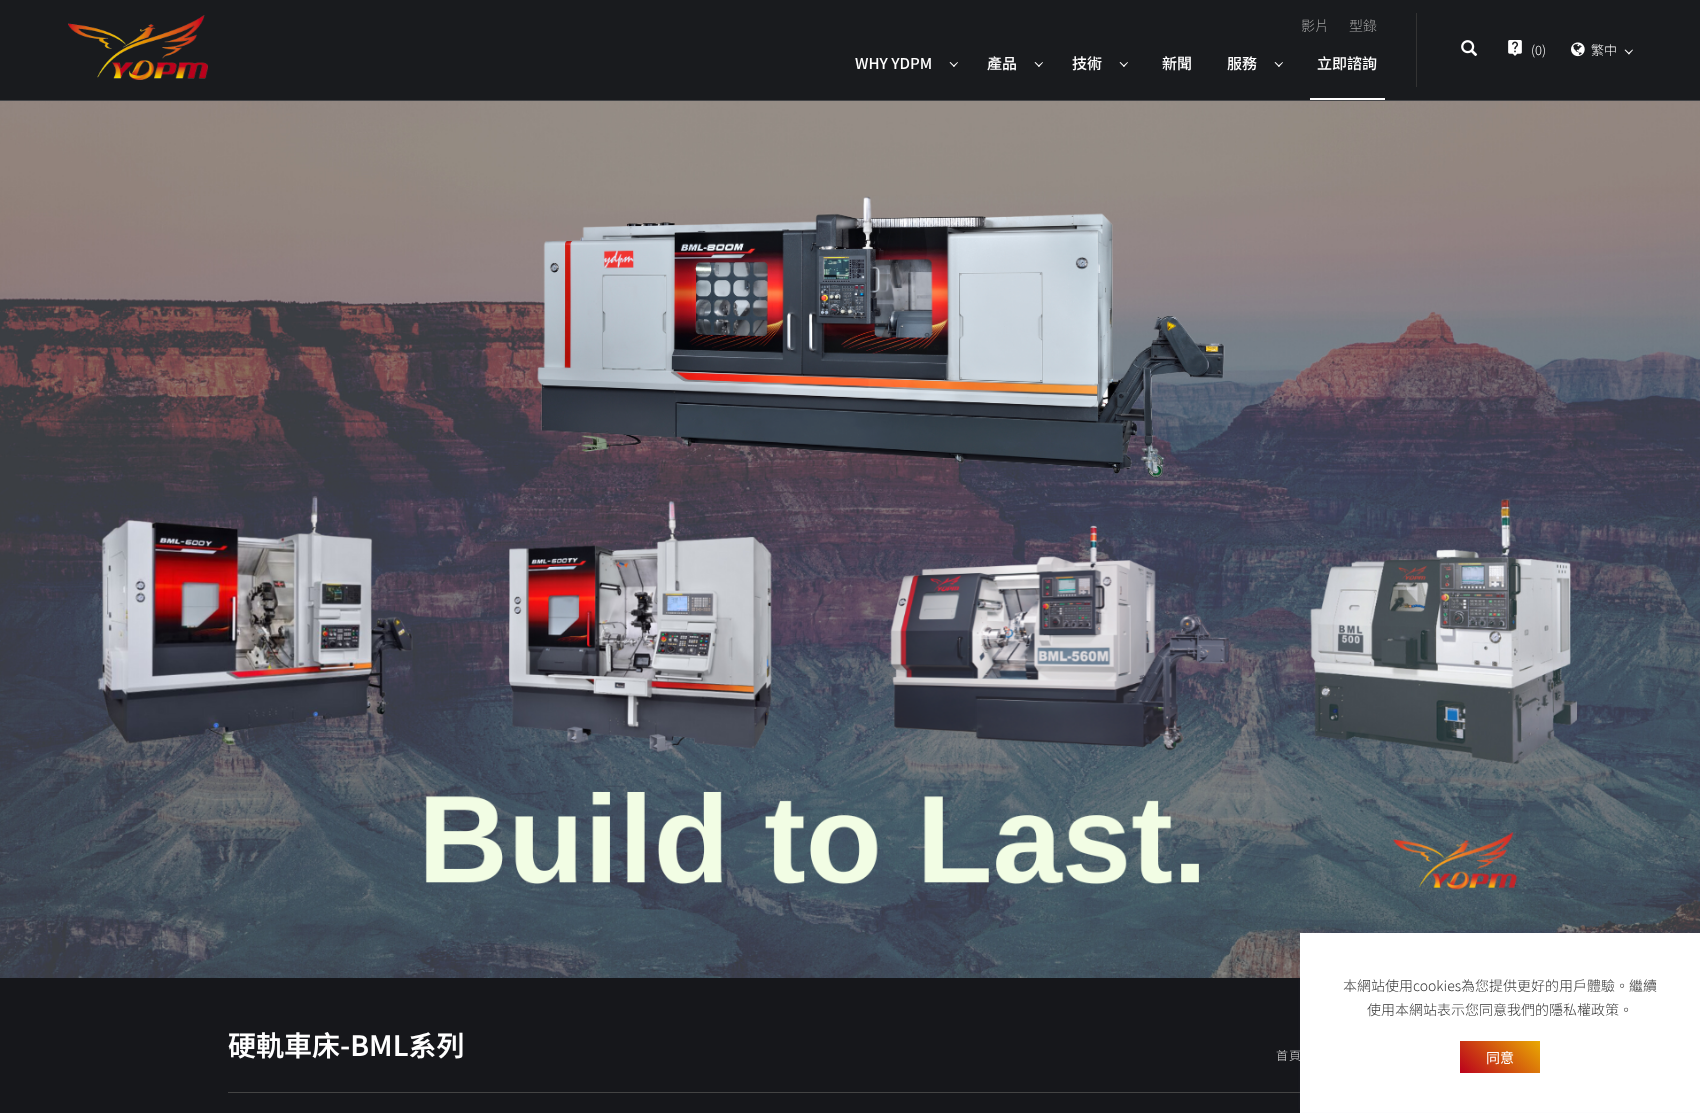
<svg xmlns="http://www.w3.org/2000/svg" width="1700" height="1113">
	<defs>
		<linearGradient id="g1" gradientUnits="userSpaceOnUse" x1="1472" y1="1085" x2="1528" y2="1029"><stop offset="0" stop-color="#BB001C" /><stop offset="1" stop-color="#E9AA02" /></linearGradient>
	</defs>
	<rect width="100%" height="100%" fill="#FFFFFF" />
	<rect x="0" y="0" width="1700" height="100" fill="#191B1E" />
	<rect x="0" y="100" width="1700" height="1" fill="#444548" />
	<image x="68" y="15" width="140" height="65" href="assets/img1.png" />
	<g font-family="Noto Sans TC" font-size="14" font-weight="300" fill="#A1A1A1">
		<text x="1301" y="31">影片</text>
		<text x="1349" y="31">型錄</text>
	</g>
	<rect x="1416" y="13" width="1" height="74" fill="#333333" />
	<image x="1461" y="40" width="17" height="17" href="assets/img2.png" />
	<image x="1508" y="40" width="14" height="16" href="assets/img3.png" />
	<text x="1531" y="55" font-family="Noto Sans TC" font-size="13" font-weight="300" fill="#FFFFFF">(0)</text>
	<image x="1571" y="42" width="14" height="15" href="assets/img4.png" />
	<text x="1591" y="55" font-family="Noto Sans TC" font-size="13" font-weight="300" fill="#FFFFFF">繁中</text>
	<path d="M1633 50L1629 54.5L1628 53.5L1632.5 49.5Z" fill="#FFFFFF" />
	<path d="M1629.5 53.5L1629 54.5L1624.5 50L1625.5 49.5Z" fill="#FFFFFF" />
	<text x="855" y="69" font-family="Noto Sans TC" font-size="15" font-weight="500" fill="#FFFFFF">WHY YDPM</text>
	<path d="M958 62.5L954 67L953 66L957.5 62Z" fill="#FFFFFF" />
	<path d="M954.5 66L954 67L949.5 62.5L950.5 62Z" fill="#FFFFFF" />
	<text x="987" y="69" font-family="Noto Sans TC" font-size="15" font-weight="500" fill="#FFFFFF">產品</text>
	<path d="M1043 62.5L1039 67L1038 66L1042.5 62Z" fill="#FFFFFF" />
	<path d="M1039.5 66L1039 67L1034.5 62.5L1035.5 62Z" fill="#FFFFFF" />
	<text x="1072" y="69" font-family="Noto Sans TC" font-size="15" font-weight="500" fill="#FFFFFF">技術</text>
	<path d="M1128 62.5L1124 67L1123 66L1127.5 62Z" fill="#FFFFFF" />
	<path d="M1124.5 66L1124 67L1119.5 62.5L1120.5 62Z" fill="#FFFFFF" />
	<g font-family="Noto Sans TC" font-size="15" font-weight="500" fill="#FFFFFF">
		<text x="1162" y="69">新聞</text>
		<text x="1227" y="69">服務</text>
	</g>
	<path d="M1283 62.5L1279 67L1278 66L1282.5 62Z" fill="#FFFFFF" />
	<path d="M1279.5 66L1279 67L1274.5 62.5L1275.5 62Z" fill="#FFFFFF" />
	<text x="1317" y="69" font-family="Noto Sans TC" font-size="15" font-weight="500" fill="#FFFFFF">立即諮詢</text>
	<rect x="1310" y="98" width="75" height="2" fill="#FFFFFF" />
	<image x="0" y="101" width="1700" height="877" href="assets/img5.png" />
	<image x="0" y="978" width="1300" height="135" href="assets/img6.png" />
	<rect x="228" y="1092" width="1072" height="1" fill="#444444" />
	<text x="228" y="1056" font-family="Noto Sans TC" font-size="28" font-weight="600" fill="#FFFFFF">硬軌車床-BML系列</text>
	<text x="1276" y="1060" font-family="Noto Sans TC" font-size="12" font-weight="300" letter-spacing="1" fill="#DDDDDD">首頁</text>
	<rect x="1300" y="930" width="400" height="180" fill="#333366" fill-opacity="0.2" filter="blur(1.5px)" />
	<rect x="1300" y="933" width="400" height="179" fill="#FFFFFF" />
	<g font-family="Noto Sans TC" font-size="14" font-weight="300" fill="#333333">
		<text x="1343" y="991">本網站使用cookies為您提供更好的用戶體驗。繼續</text>
		<text x="1367" y="1015">使用本網站表示您同意我們的隱私權政策。</text>
	</g>
	<rect x="1460" y="1041" width="80" height="32" fill="url(#g1)" />
	<text x="1486" y="1063" font-family="Noto Sans TC" font-size="14" fill="#FFFFFF">同意</text>
</svg>
